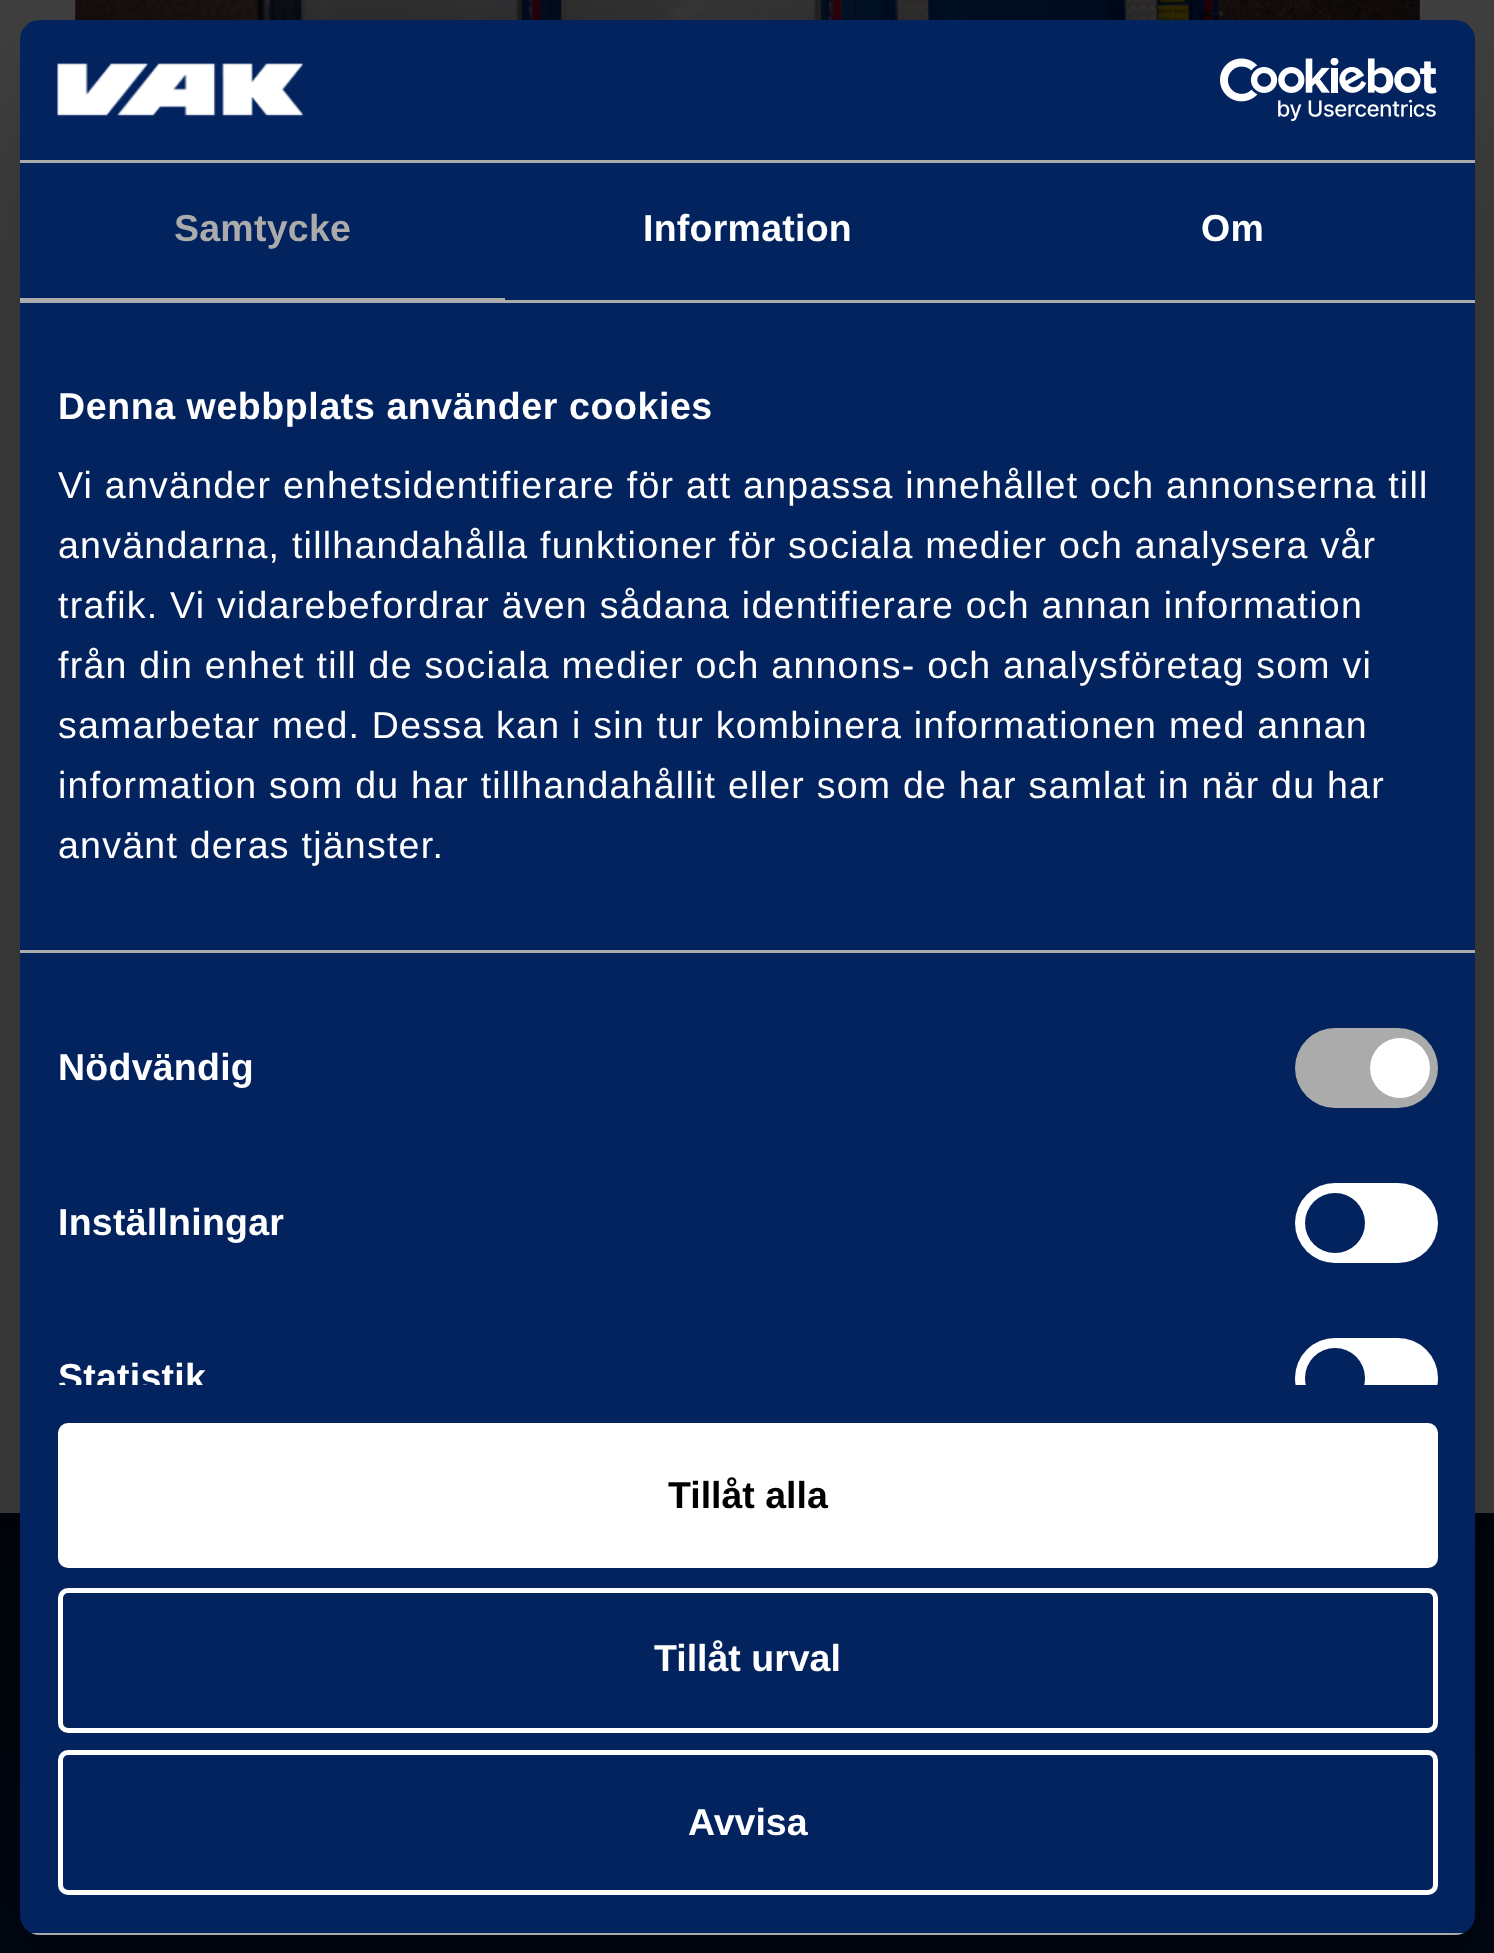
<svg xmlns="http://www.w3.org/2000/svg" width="1494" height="1953">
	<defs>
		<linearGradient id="g1" gradientUnits="userSpaceOnUse" x1="747" y1="1513" x2="748" y2="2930"><stop offset="0" stop-color="#01050C" /><stop offset="0.5" stop-color="#010918" /><stop offset="1" stop-color="#010918" /></linearGradient>
		<clipPath id="clip1"><rect x="20" y="303" width="1455" height="1082" /></clipPath>
		<clipPath id="clip2"><rect x="20" y="20" width="1455" height="1915" rx="20" /></clipPath>
	</defs>
	<rect width="100%" height="100%" fill="#404040" />
	<image x="75" y="0" width="1345" height="20" href="assets/img1.png" />
	<rect x="0" y="1513" width="1494" height="440" fill="url(#g1)" />
	<rect x="20" y="100" width="1455" height="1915" rx="20" fill="#000000" fill-opacity="0.3" filter="blur(85px)" />
	<rect x="20" y="20" width="1455" height="1915" rx="20" fill="#03235F" />
	<rect x="20" y="160" width="1455" height="3" fill="#ABABAB" />
	<image x="57" y="63" width="246" height="54" href="assets/img2.png" />
	<image x="1220" y="58" width="217" height="63" href="assets/img3.png" />
	<rect x="20" y="300" width="1455" height="3" fill="#ABABAB" />
	<rect x="20" y="298" width="485" height="2" fill="#ABABAB" />
	<text x="174" y="241" font-family="Liberation Sans" font-size="37.5" font-weight="700" letter-spacing="0.25" fill="#ABABAB">Samtycke</text>
	<g font-family="Liberation Sans" font-size="37.5" font-weight="700" letter-spacing="0.25" fill="#FFFFFF">
		<text x="643" y="241">Information</text>
		<text x="1201" y="241">Om</text>
	</g>
	<rect x="20" y="950" width="1455" height="3" fill="#ABABAB" />
	<text x="58" y="419" font-family="Liberation Sans" font-size="37.5" font-weight="700" letter-spacing="0.6" fill="#FFFFFF">Denna webbplats använder cookies</text>
	<g font-family="Liberation Sans" font-size="37.5" letter-spacing="1.25" fill="#FFFFFF">
		<text x="58" y="498">Vi använder enhetsidentifierare för att anpassa innehållet och annonserna till</text>
		<text x="58" y="558">användarna, tillhandahålla funktioner för sociala medier och analysera vår</text>
		<text x="58" y="618">trafik. Vi vidarebefordrar även sådana identifierare och annan information</text>
		<text x="58" y="678">från din enhet till de sociala medier och annons- och analysföretag som vi</text>
		<text x="58" y="738">samarbetar med. Dessa kan i sin tur kombinera informationen med annan</text>
		<text x="58" y="798">information som du har tillhandahållit eller som de har samlat in när du har</text>
		<text x="58" y="858">använt deras tjänster.</text>
	</g>
	<text x="58" y="1080" font-family="Liberation Sans" font-size="37.5" font-weight="700" letter-spacing="0.25" fill="#FFFFFF">Nödvändig</text>
	<rect x="1295" y="1028" width="143" height="80" rx="40" fill="#ABABAB" />
	<circle cx="1400" cy="1068" r="30" fill="#FFFFFF" />
	<text x="58" y="1235" font-family="Liberation Sans" font-size="37.5" font-weight="700" letter-spacing="0.25" fill="#FFFFFF">Inställningar</text>
	<rect x="1295" y="1183" width="143" height="80" rx="40" fill="#FFFFFF" />
	<circle cx="1335" cy="1223" r="30" fill="#03235F" />
	<g clip-path="url(#clip1)">
		<text x="58" y="1390" font-family="Liberation Sans" font-size="37.5" font-weight="700" letter-spacing="0.25" fill="#FFFFFF">Statistik</text>
		<rect x="1295" y="1338" width="143" height="80" rx="40" fill="#FFFFFF" />
		<circle cx="1335" cy="1378" r="30" fill="#03235F" />
	</g>
	<g clip-path="url(#clip2)">
		<rect x="31" y="1933" width="1433" height="2" fill="#ABABAB" />
	</g>
	<rect x="60.5" y="1425.5" width="1375" height="140" rx="7.5" fill="#FFFFFF" stroke="#FFFFFF" stroke-width="5" />
	<text x="668" y="1508" font-family="Liberation Sans" font-size="37.5" font-weight="700" fill="#000000">Tillåt alla</text>
	<rect x="60.5" y="1590.5" width="1375" height="140" rx="7.5" fill="none" stroke="#FFFFFF" stroke-width="5" />
	<text x="654" y="1671" font-family="Liberation Sans" font-size="37.5" font-weight="700" fill="#FFFFFF">Tillåt urval</text>
	<rect x="60.5" y="1752.5" width="1375" height="140" rx="7.5" fill="none" stroke="#FFFFFF" stroke-width="5" />
	<text x="688" y="1835" font-family="Liberation Sans" font-size="37.5" font-weight="700" fill="#FFFFFF">Avvisa</text>
</svg>
